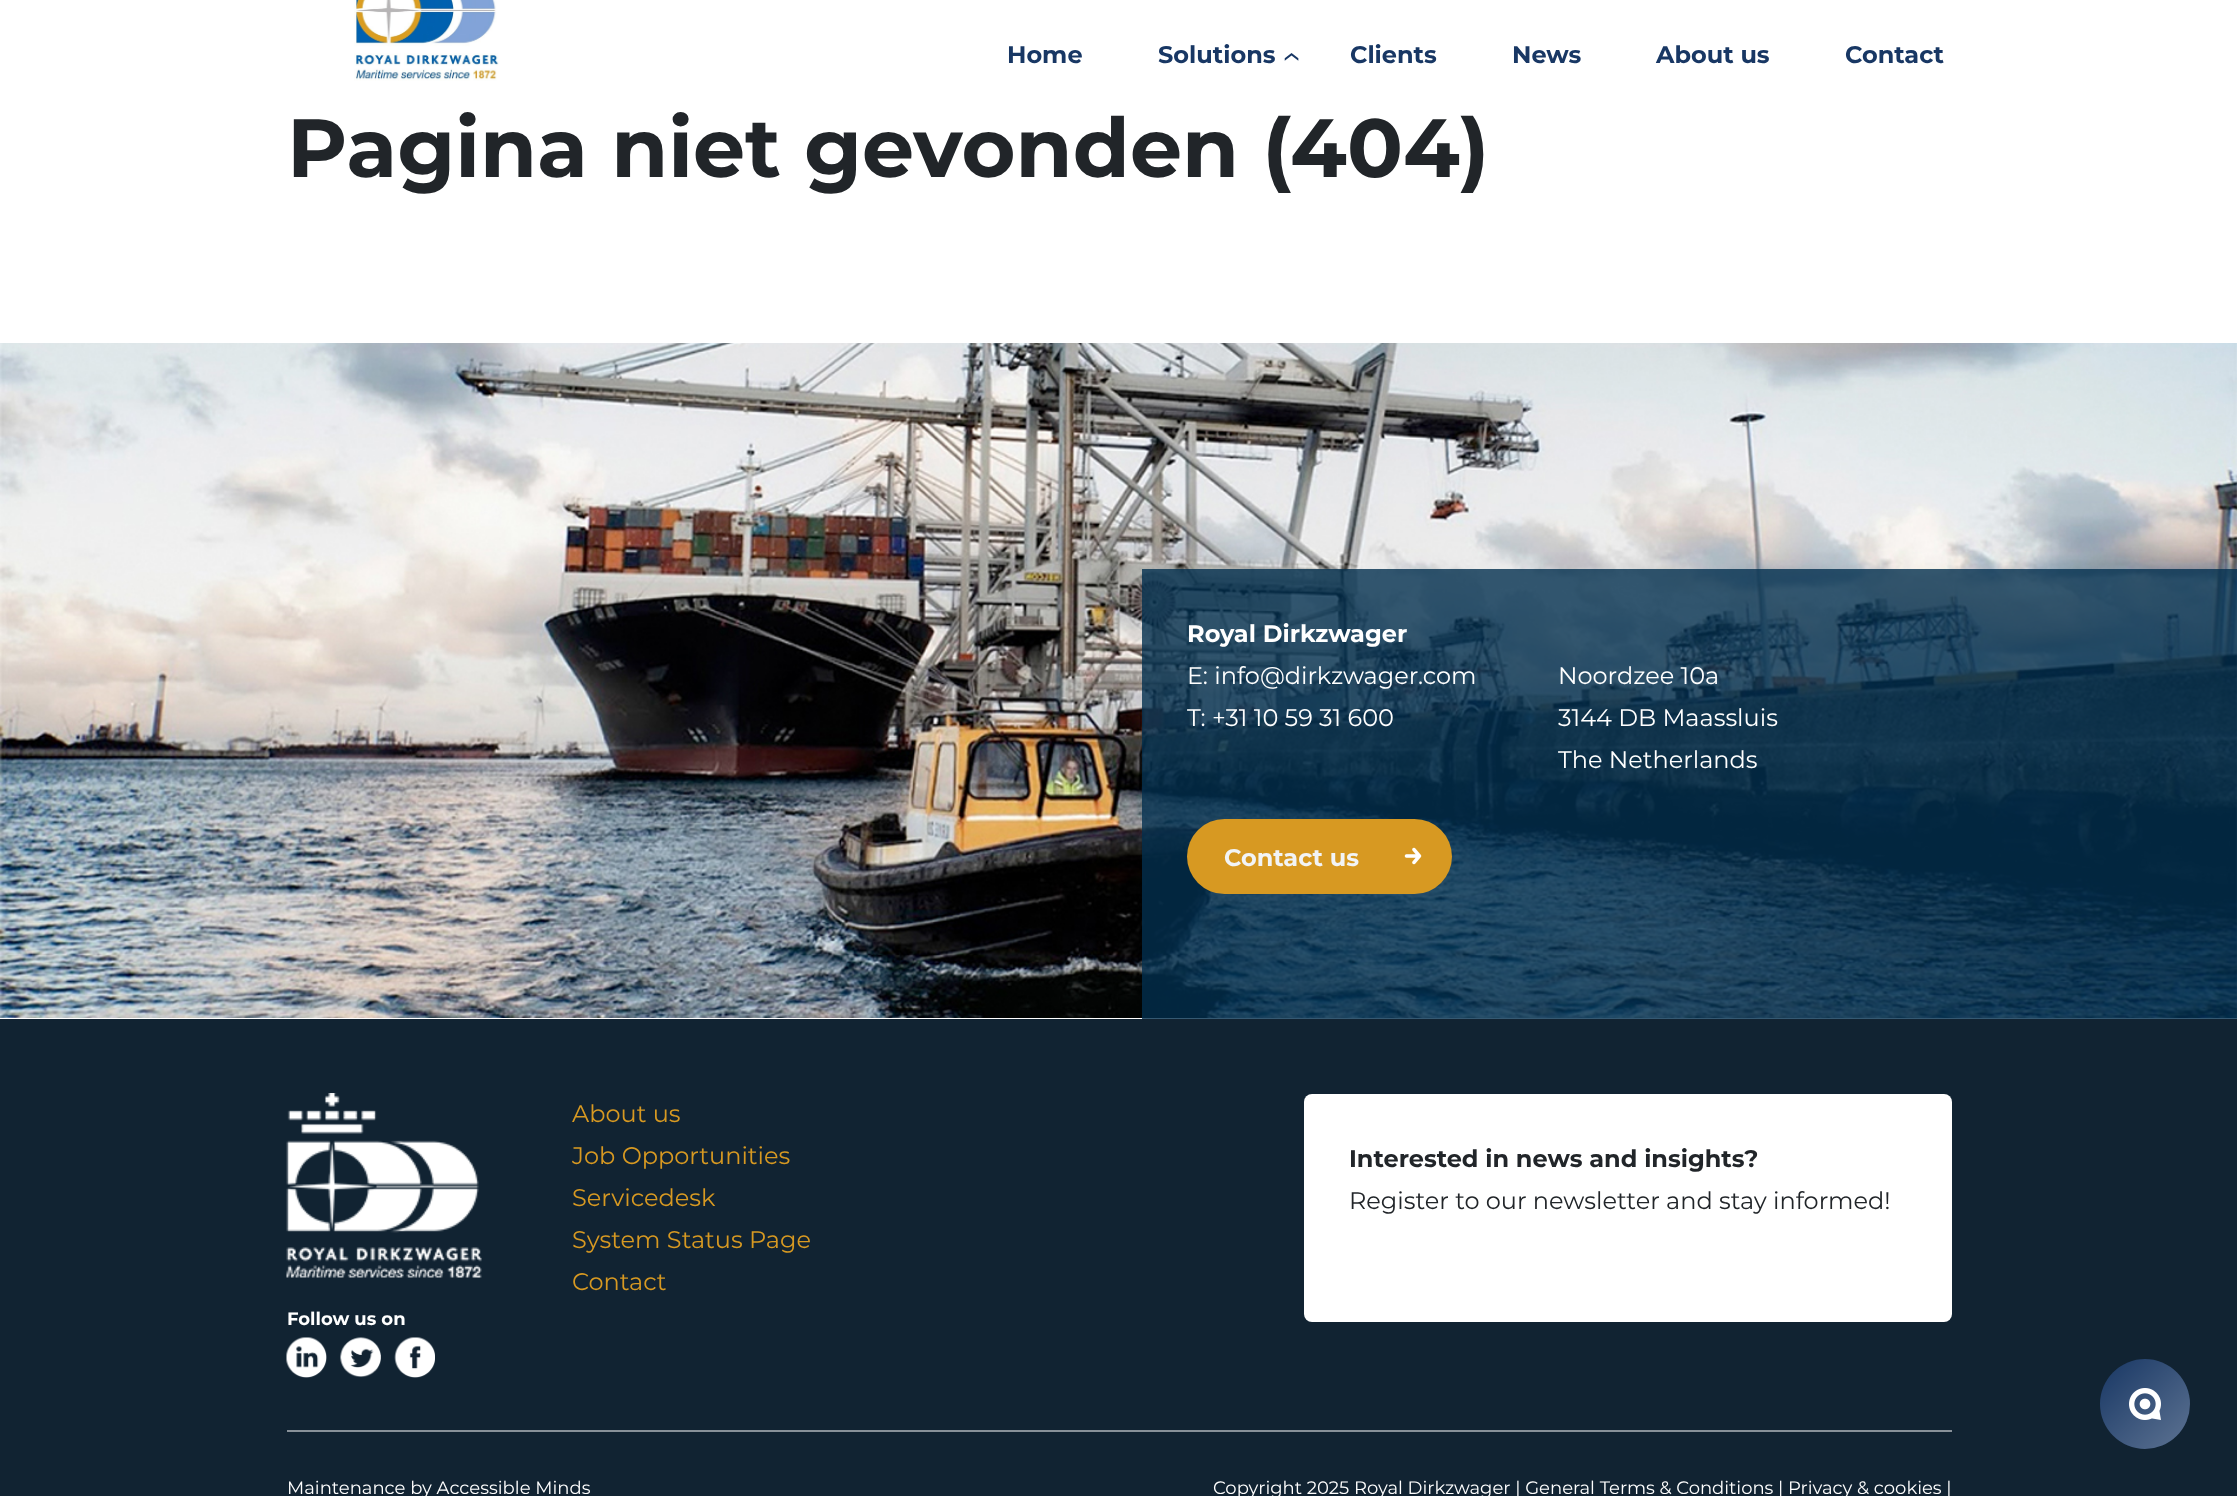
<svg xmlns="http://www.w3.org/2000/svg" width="2237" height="1496">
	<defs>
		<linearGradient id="g1" gradientUnits="userSpaceOnUse" x1="2190" y1="1449" x2="2100" y2="1359"><stop offset="0" stop-color="#FFFFFF" stop-opacity="0.3" /><stop offset="1" stop-color="#FFFFFF" stop-opacity="0" /></linearGradient>
	</defs>
	<rect width="100%" height="100%" fill="#FFFFFF" />
	<image x="354" y="0" width="145" height="81" href="assets/img1.png" />
	<g font-family="Montserrat" font-size="24" font-weight="700" fill="#183764">
		<text x="1007" y="63">Home</text>
		<text x="1158" y="63">Solutions</text>
	</g>
	<text x="1301" y="62" transform="rotate(-90 1301 62)" font-family="Montserrat" font-size="36" fill="#183764">›</text>
	<g font-family="Montserrat" font-size="24" font-weight="700" fill="#183764">
		<text x="1350" y="63">Clients</text>
		<text x="1512" y="63">News</text>
		<text x="1656" y="63">About us</text>
		<text x="1845" y="63">Contact</text>
	</g>
	<text x="287" y="177" font-family="Montserrat" font-size="82.5" font-weight="700" fill="#212529">Pagina niet gevonden (404)</text>
	<image x="0" y="343" width="2237" height="675" href="assets/img2.png" />
	<rect x="1142" y="569" width="832" height="450" fill="#03304F" fill-opacity="0.8" />
	<text x="1187" y="642" font-family="Montserrat" font-size="24" font-weight="700" fill="#FFFFFF">Royal Dirkzwager</text>
	<rect x="1974" y="569" width="263" height="450" fill="#03304F" fill-opacity="0.8" />
	<g font-family="Montserrat" font-size="24" fill="#FFFFFF">
		<text x="1187" y="684">E: info@dirkzwager.com</text>
		<text x="1187" y="726">T: +31 10 59 31 600</text>
		<text x="1558" y="684">Noordzee 10a</text>
		<text x="1558" y="726">3144 DB Maassluis</text>
		<text x="1558" y="768">The Netherlands</text>
	</g>
	<rect x="1187" y="819" width="265" height="75" rx="37.5" fill="#D79922" />
	<text x="1224" y="866" font-family="Montserrat" font-size="24" font-weight="700" fill="#F2F4F6">Contact us</text>
	<image x="1404" y="847" width="18" height="18" href="assets/img3.png" />
	<rect x="0" y="1019" width="2237" height="477" fill="#112332" />
	<g font-family="Montserrat" font-size="24" fill="#D79922">
		<text x="572" y="1122">About us</text>
		<text x="572" y="1164">Job Opportunities</text>
		<text x="572" y="1206">Servicedesk</text>
		<text x="572" y="1248">System Status Page</text>
		<text x="572" y="1290">Contact</text>
	</g>
	<rect x="1304" y="1094" width="648" height="228" rx="8" fill="#FFFFFF" />
	<text x="1349" y="1167" font-family="Montserrat" font-size="24" font-weight="700" fill="#212529">Interested in news and insights?</text>
	<text x="1349" y="1209" font-family="Montserrat" font-size="24" fill="#212529">Register to our newsletter and stay informed!</text>
	<image x="286" y="1093" width="196" height="185" href="assets/img4.png" />
	<text x="287" y="1325" font-family="Montserrat" font-size="18" font-weight="700" fill="#FFFFFF">Follow us on</text>
	<image x="286" y="1337" width="41" height="41" href="assets/img5.png" />
	<image x="340" y="1337" width="41" height="41" href="assets/img6.png" />
	<image x="394" y="1337" width="41" height="41" href="assets/img7.png" />
	<circle cx="2145" cy="1404" r="45" fill="#183764" />
	<circle cx="2145" cy="1404" r="45" fill="url(#g1)" />
	<image x="2129" y="1388" width="32" height="32" href="assets/img8.png" />
	<rect x="287" y="1430" width="1665" height="2" fill="#889199" />
	<g font-family="Montserrat" font-size="18" fill="#FFFFFF">
		<text x="287" y="1494">Maintenance by Accessible Minds</text>
		<text x="1213" y="1494">Copyright 2025 Royal Dirkzwager | General Terms &amp; Conditions | Privacy &amp; cookies |</text>
	</g>
</svg>
